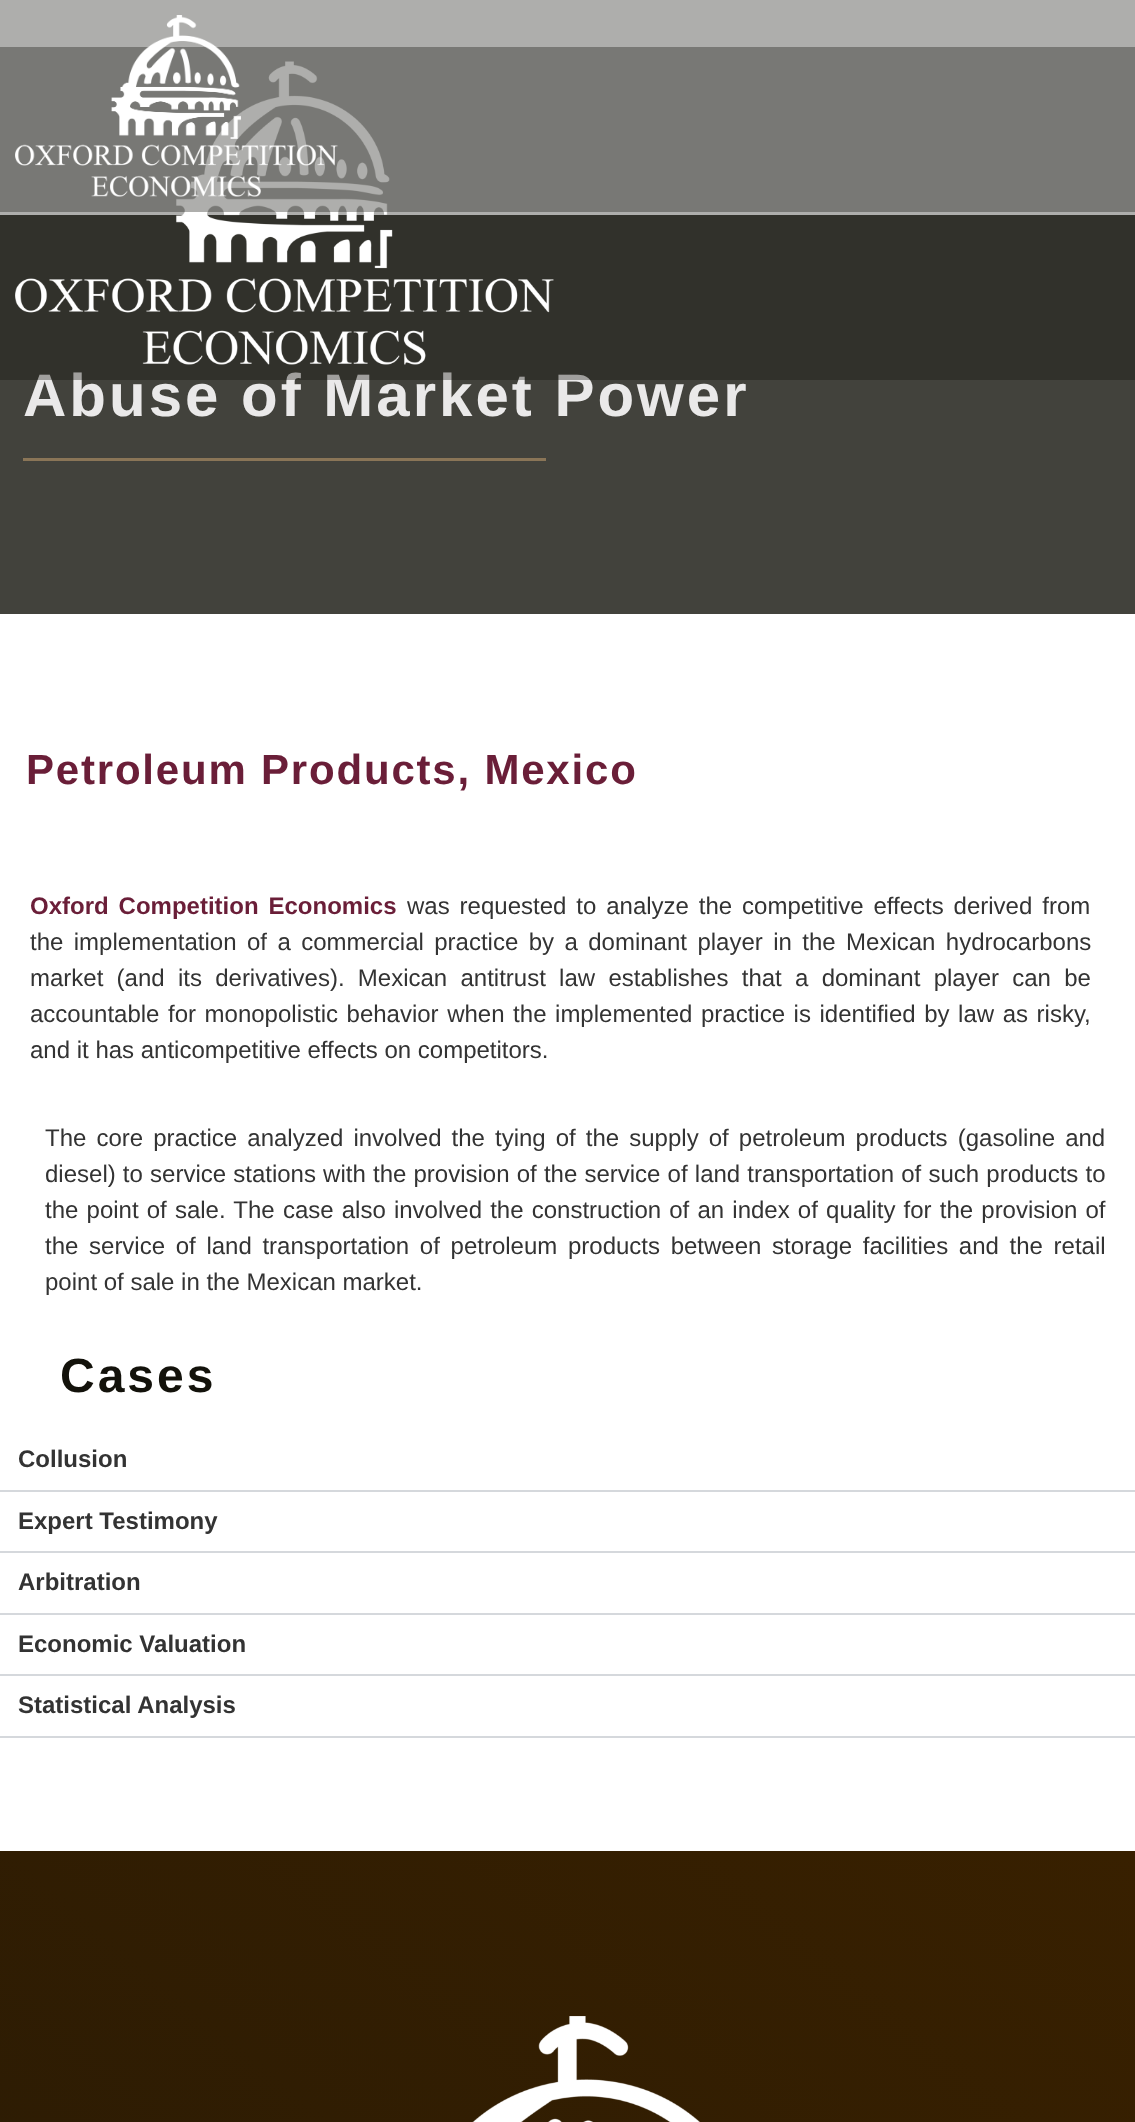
<svg xmlns="http://www.w3.org/2000/svg" width="1135" height="2122">
	<defs>
		<linearGradient id="g1" gradientUnits="userSpaceOnUse" x1="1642" y1="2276" x2="-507" y2="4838"><stop offset="0" stop-color="#382000" /><stop offset="1" stop-color="#13120B" /></linearGradient>
	</defs>
	<rect width="100%" height="100%" fill="#FFFFFF" />
	<rect x="0" y="215" width="1135" height="399" fill="#42423C" />
	<text x="23" y="416" font-family="Liberation Sans" font-size="60" font-weight="700" letter-spacing="3" fill="#EAE9E9">Abuse of Market Power</text>
	<rect x="0" y="47" width="1135" height="333" fill="#13120B" fill-opacity="0.34" />
	<image x="15" y="61" width="539" height="304" href="assets/img2.png" />
	<rect x="0" y="0" width="1135" height="212" fill="#13120B" fill-opacity="0.34" />
	<image x="15" y="15" width="323" height="182" href="assets/img1.png" />
	<rect x="23" y="458" width="523" height="3" fill="#8A7557" />
	<text x="26" y="784" font-family="Liberation Sans" font-size="42" font-weight="700" letter-spacing="1.8" fill="#6A1E38">Petroleum Products, Mexico</text>
	<text x="30" y="914" word-spacing="3.25" font-family="Liberation Sans" font-size="24" font-weight="700" fill="#6A1E38">Oxford Competition Economics</text>
	<g font-family="Liberation Sans" font-size="24" fill="#333333">
		<text x="407" y="914" word-spacing="3.25">was requested to analyze the competitive effects derived from</text>
		<text x="30" y="950" word-spacing="3.75">the implementation of a commercial practice by a dominant player in the Mexican hydrocarbons</text>
		<text x="30" y="986" word-spacing="6.6">market (and its derivatives). Mexican antitrust law establishes that a dominant player can be</text>
		<text x="30" y="1022" word-spacing="1.9">accountable for monopolistic behavior when the implemented practice is identified by law as risky,</text>
		<text x="30" y="1058">and it has anticompetitive effects on competitors.</text>
		<text x="45" y="1146" word-spacing="3.4">The core practice analyzed involved the tying of the supply of petroleum products (gasoline and</text>
		<text x="45" y="1182" word-spacing="0.5">diesel) to service stations with the provision of the service of land transportation of such products to</text>
		<text x="45" y="1218" word-spacing="1.5">the point of sale. The case also involved the construction of an index of quality for the provision of</text>
		<text x="45" y="1254" word-spacing="4">the service of land transportation of petroleum products between storage facilities and the retail</text>
		<text x="45" y="1290">point of sale in the Mexican market.</text>
	</g>
	<text x="60" y="1392" font-family="Liberation Sans" font-size="48" font-weight="700" letter-spacing="3" fill="#13120B">Cases</text>
	<rect x="0" y="1490" width="1135" height="2" fill="#D5D8DC" />
	<text x="18" y="1467" font-family="Liberation Sans" font-size="24" font-weight="700" fill="#333333">Collusion</text>
	<rect x="0" y="1551" width="1135" height="2" fill="#D5D8DC" />
	<text x="18" y="1529" font-family="Liberation Sans" font-size="24" font-weight="700" fill="#333333">Expert Testimony</text>
	<rect x="0" y="1613" width="1135" height="2" fill="#D5D8DC" />
	<text x="18" y="1590" font-family="Liberation Sans" font-size="24" font-weight="700" fill="#333333">Arbitration</text>
	<rect x="0" y="1674" width="1135" height="2" fill="#D5D8DC" />
	<text x="18" y="1652" font-family="Liberation Sans" font-size="24" font-weight="700" fill="#333333">Economic Valuation</text>
	<rect x="0" y="1736" width="1135" height="2" fill="#D5D8DC" />
	<text x="18" y="1713" font-family="Liberation Sans" font-size="24" font-weight="700" fill="#333333">Statistical Analysis</text>
	<rect x="0" y="1851" width="1135" height="271" fill="url(#g1)" />
	<image x="472" y="2016" width="228" height="106" href="assets/img3.png" />
</svg>
